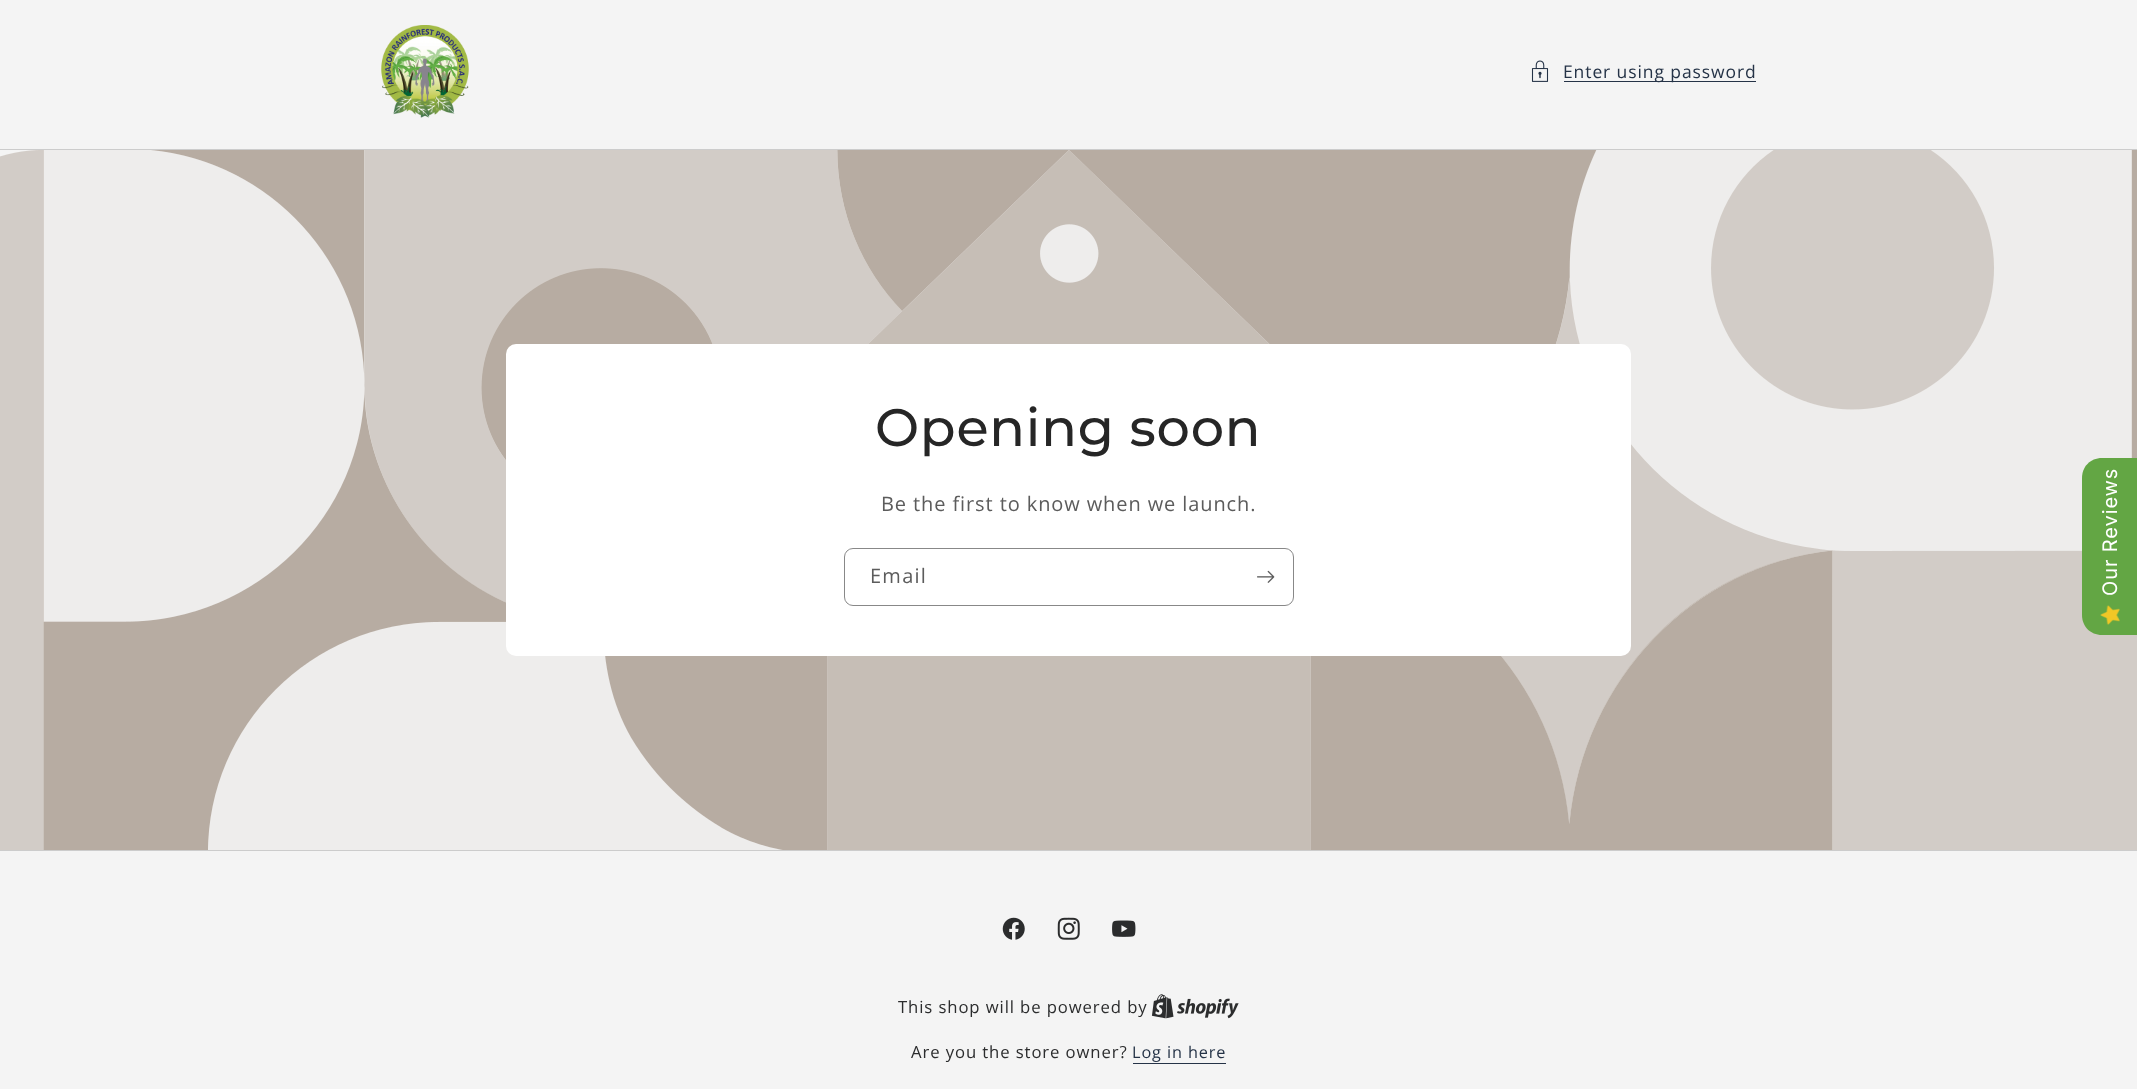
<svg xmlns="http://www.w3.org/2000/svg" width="2137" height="1089">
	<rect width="100%" height="100%" fill="#F4F4F4" />
	<image x="381" y="25" width="88" height="93" href="assets/img1.png" />
	<image x="1531" y="60" width="18" height="22" href="assets/img2.png" />
	<rect x="1564" y="81" width="192" height="1" fill="#253347" />
	<text x="1563" y="78" font-family="Open Sans" font-size="17.5" letter-spacing="0.9" fill="#253347">Enter using password</text>
	<rect x="0" y="149" width="2137" height="1" fill="#CCCCCC" />
	<image x="0" y="150" width="2137" height="700" href="assets/img3.png" />
	<rect x="506" y="344" width="1125" height="312" rx="10" fill="#FFFFFF" />
	<text x="875" y="446" font-family="Montserrat" font-size="52.5" font-weight="500" letter-spacing="0.75" fill="#262626">Opening soon</text>
	<text x="881" y="511" font-family="Open Sans" font-size="20" letter-spacing="0.9" fill="#5C5C5C">Be the first to know when we launch.</text>
	<rect x="844.5" y="548.5" width="449" height="57" rx="8.5" fill="none" stroke="#888888" />
	<text x="870" y="583" font-family="Open Sans" font-size="20" letter-spacing="1.25" fill="#5C5C5C">Email</text>
	<image x="1257" y="570" width="18" height="13" href="assets/img4.png" />
	<path d="M2082 615V478C2082 467 2090 458 2102 458H2137V635H2102C2090 635 2082 626 2082 615Z" fill="#63A644" />
	<text x="2117" y="596" transform="rotate(-90 2117 596)" font-family="Inter" font-size="20" letter-spacing="0.9" fill="#FFFFFF">Our Reviews</text>
	<image x="2100" y="605" width="20" height="20" href="assets/img5.png" />
	<rect x="0" y="850" width="2137" height="1" fill="#CCCCCC" />
	<image x="1002" y="917" width="23" height="23" href="assets/img6.png" />
	<image x="1057" y="917" width="23" height="23" href="assets/img7.png" />
	<image x="1112" y="920" width="24" height="17" href="assets/img8.png" />
	<text x="898" y="1013" font-family="Open Sans" font-size="16.7" letter-spacing="0.9" fill="#2B2C2D">This shop will be powered by</text>
	<image x="1151" y="994" width="88" height="25" href="assets/img9.png" />
	<text x="911" y="1058" font-family="Open Sans" font-size="16.7" letter-spacing="0.9" fill="#2B2C2D">Are you the store owner?</text>
	<text x="1132" y="1058" font-family="Open Sans" font-size="16.25" letter-spacing="0.9" fill="#253347">Log in here</text>
	<rect x="1133" y="1063" width="93" height="1" fill="#253347" />
</svg>
